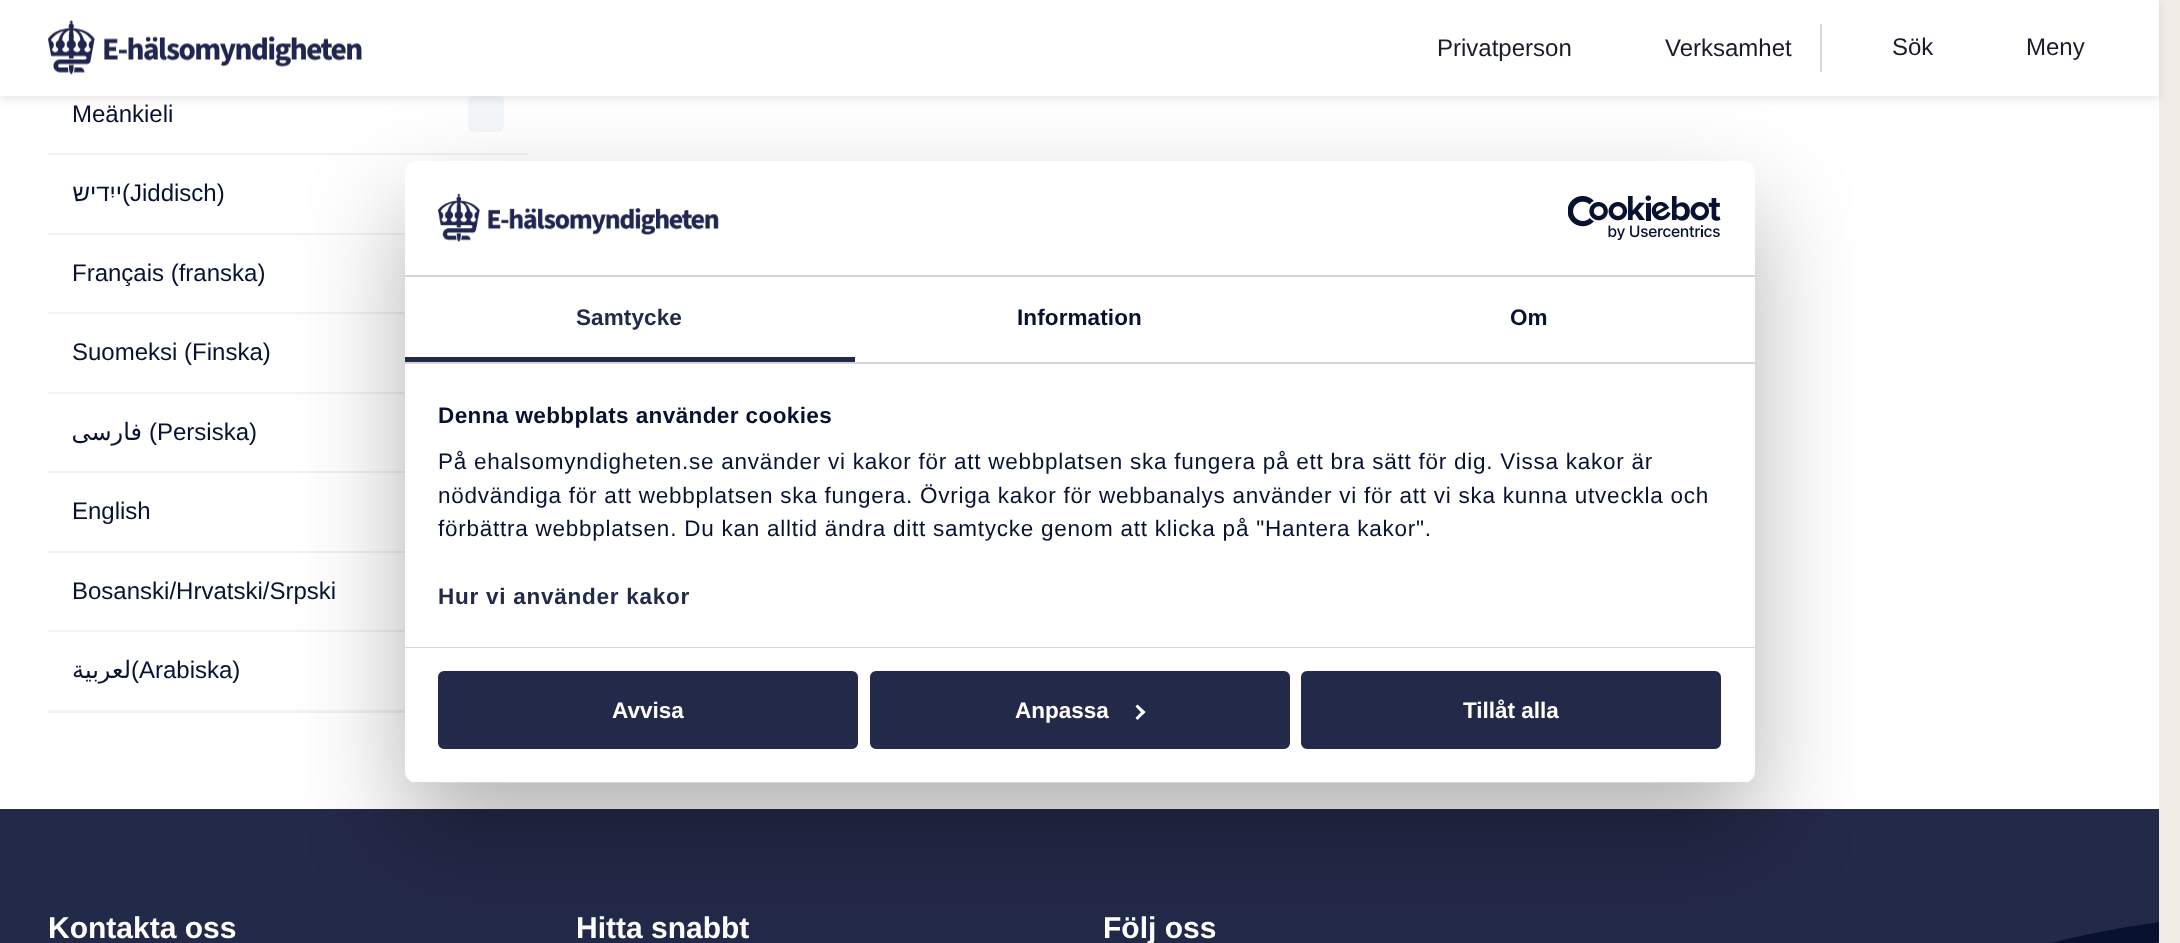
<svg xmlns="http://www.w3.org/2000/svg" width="2180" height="943">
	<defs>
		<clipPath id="clip1"><rect x="405" y="161" width="1350" height="622" rx="12" /></clipPath>
	</defs>
	<rect width="100%" height="100%" fill="#F1EDE5" />
	<rect x="0" y="96" width="2159" height="713" fill="#FFFFFF" />
	<rect x="468" y="96" width="36" height="36" rx="6" fill="#F4F7FA" />
	<rect x="0" y="3" width="2159" height="96" fill="#000000" fill-opacity="0.1" filter="blur(4.5px)" />
	<rect x="0" y="0" width="2159" height="96" fill="#FFFFFF" />
	<image x="48" y="20" width="314" height="55" href="assets/img1.png" />
	<g font-family="Liberation Sans" font-size="24" fill="#171C26">
		<text x="1437" y="56">Privatperson</text>
		<text x="1665" y="56">Verksamhet</text>
	</g>
	<rect x="1820" y="24" width="2" height="48" fill="#D6D8DB" />
	<g font-family="Liberation Sans" font-size="24" fill="#171C26">
		<text x="1892" y="55">Sök</text>
		<text x="2026" y="55">Meny</text>
	</g>
	<rect x="48" y="710" width="357" height="3" fill="#F2F2F2" />
	<rect x="48" y="153" width="480" height="2" fill="#F2F2F2" />
	<text x="72" y="122" font-family="Liberation Sans" font-size="24" fill="#081130">Meänkieli</text>
	<rect x="48" y="233" width="357" height="2" fill="#F2F2F2" />
	<text x="122" y="201" font-family="Liberation Sans" font-size="24" direction="rtl" fill="#081130">ייִדיש</text>
	<text x="122" y="201" font-family="Liberation Sans" font-size="24" fill="#081130">(Jiddisch)</text>
	<rect x="48" y="312" width="357" height="2" fill="#F2F2F2" />
	<text x="72" y="281" font-family="Liberation Sans" font-size="24" fill="#081130">Français (franska)</text>
	<rect x="48" y="392" width="357" height="2" fill="#F2F2F2" />
	<text x="72" y="360" font-family="Liberation Sans" font-size="24" fill="#081130">Suomeksi (Finska)</text>
	<rect x="48" y="471" width="357" height="2" fill="#F2F2F2" />
	<text x="142" y="440" font-family="DejaVu Sans" font-size="24" direction="rtl" fill="#081130">فارسی</text>
	<text x="149" y="440" font-family="Liberation Sans" font-size="24" fill="#081130">(Persiska)</text>
	<rect x="48" y="551" width="357" height="2" fill="#F2F2F2" />
	<text x="72" y="519" font-family="Liberation Sans" font-size="24" fill="#081130">English</text>
	<rect x="48" y="630" width="357" height="2" fill="#F2F2F2" />
	<text x="72" y="599" font-family="Liberation Sans" font-size="24" fill="#081130">Bosanski/Hrvatski/Srpski</text>
	<text x="131" y="678" font-family="DejaVu Sans" font-size="24" direction="rtl" fill="#081130">لعربية</text>
	<text x="131" y="678" font-family="Liberation Sans" font-size="24" fill="#081130">(Arabiska)</text>
	<rect x="0" y="809" width="2159" height="134" fill="#232948" />
	<image x="2051" y="922" width="108" height="21" href="assets/img2.png" />
	<g font-family="Liberation Sans" font-size="30" font-weight="700" fill="#FFFFFF">
		<text x="48" y="938">Kontakta oss</text>
		<text x="576" y="938">Hitta snabbt</text>
		<text x="1103" y="938">Följ oss</text>
	</g>
	<rect x="405" y="209" width="1350" height="622" rx="12" fill="#000000" fill-opacity="0.3" filter="blur(51px)" />
	<rect x="405" y="161" width="1350" height="622" rx="12" fill="#FFFFFF" />
	<rect x="405" y="275" width="1350" height="2" fill="#D6D6D6" />
	<image x="438" y="193" width="281" height="49" href="assets/img3.png" />
	<image x="1568" y="195" width="153" height="45" href="assets/img4.png" />
	<rect x="405" y="362" width="1350" height="2" fill="#D6D6D6" />
	<rect x="405" y="357" width="450" height="5" fill="#232948" />
	<text x="576" y="325" font-family="Liberation Sans" font-size="22.5" font-weight="700" letter-spacing="0.1" fill="#232948">Samtycke</text>
	<g font-family="Liberation Sans" font-size="22.5" font-weight="700" letter-spacing="0.1" fill="#081130">
		<text x="1017" y="325">Information</text>
		<text x="1510" y="325">Om</text>
	</g>
	<rect x="405" y="647" width="1350" height="1" fill="#D6D6D6" />
	<text x="438" y="423" font-family="Liberation Sans" font-size="22.5" font-weight="700" letter-spacing="0.4" fill="#081130">Denna webbplats använder cookies</text>
	<g font-family="Liberation Sans" font-size="22.5" letter-spacing="0.75" fill="#081130">
		<text x="438" y="469">På ehalsomyndigheten.se använder vi kakor för att webbplatsen ska fungera på ett bra sätt för dig. Vissa kakor är</text>
		<text x="438" y="503">nödvändiga för att webbplatsen ska fungera. Övriga kakor för webbanalys använder vi för att vi ska kunna utveckla och</text>
		<text x="438" y="536">förbättra webbplatsen. Du kan alltid ändra ditt samtycke genom att klicka på "Hantera kakor".</text>
	</g>
	<text x="438" y="604" font-family="Liberation Sans" font-size="22.5" font-weight="700" letter-spacing="0.75" fill="#232948">Hur vi använder kakor</text>
	<g clip-path="url(#clip1)">
		<rect x="405" y="782" width="1350" height="1" fill="#D6D6D6" />
	</g>
	<rect x="439.5" y="672.5" width="417" height="75" rx="4.5" fill="#232948" stroke="#232948" stroke-width="3" />
	<text x="612" y="718" font-family="Liberation Sans" font-size="22.5" font-weight="700" fill="#FFFFFF">Avvisa</text>
	<rect x="871.5" y="672.5" width="417" height="75" rx="4.5" fill="#232948" stroke="#232948" stroke-width="3" />
	<text x="1015" y="718" font-family="Liberation Sans" font-size="22.5" font-weight="700" fill="#FFFFFF">Anpassa</text>
	<path d="M1137.5 704.5L1145.5 712L1143 714.5L1135.5 706.5Z" fill="#FFFFFF" />
	<path d="M1143 710L1145.5 712L1137.5 720L1135.5 718Z" fill="#FFFFFF" />
	<rect x="1302.5" y="672.5" width="417" height="75" rx="4.5" fill="#232948" stroke="#232948" stroke-width="3" />
	<text x="1463" y="718" font-family="Liberation Sans" font-size="22.5" font-weight="700" fill="#FFFFFF">Tillåt alla</text>
</svg>
